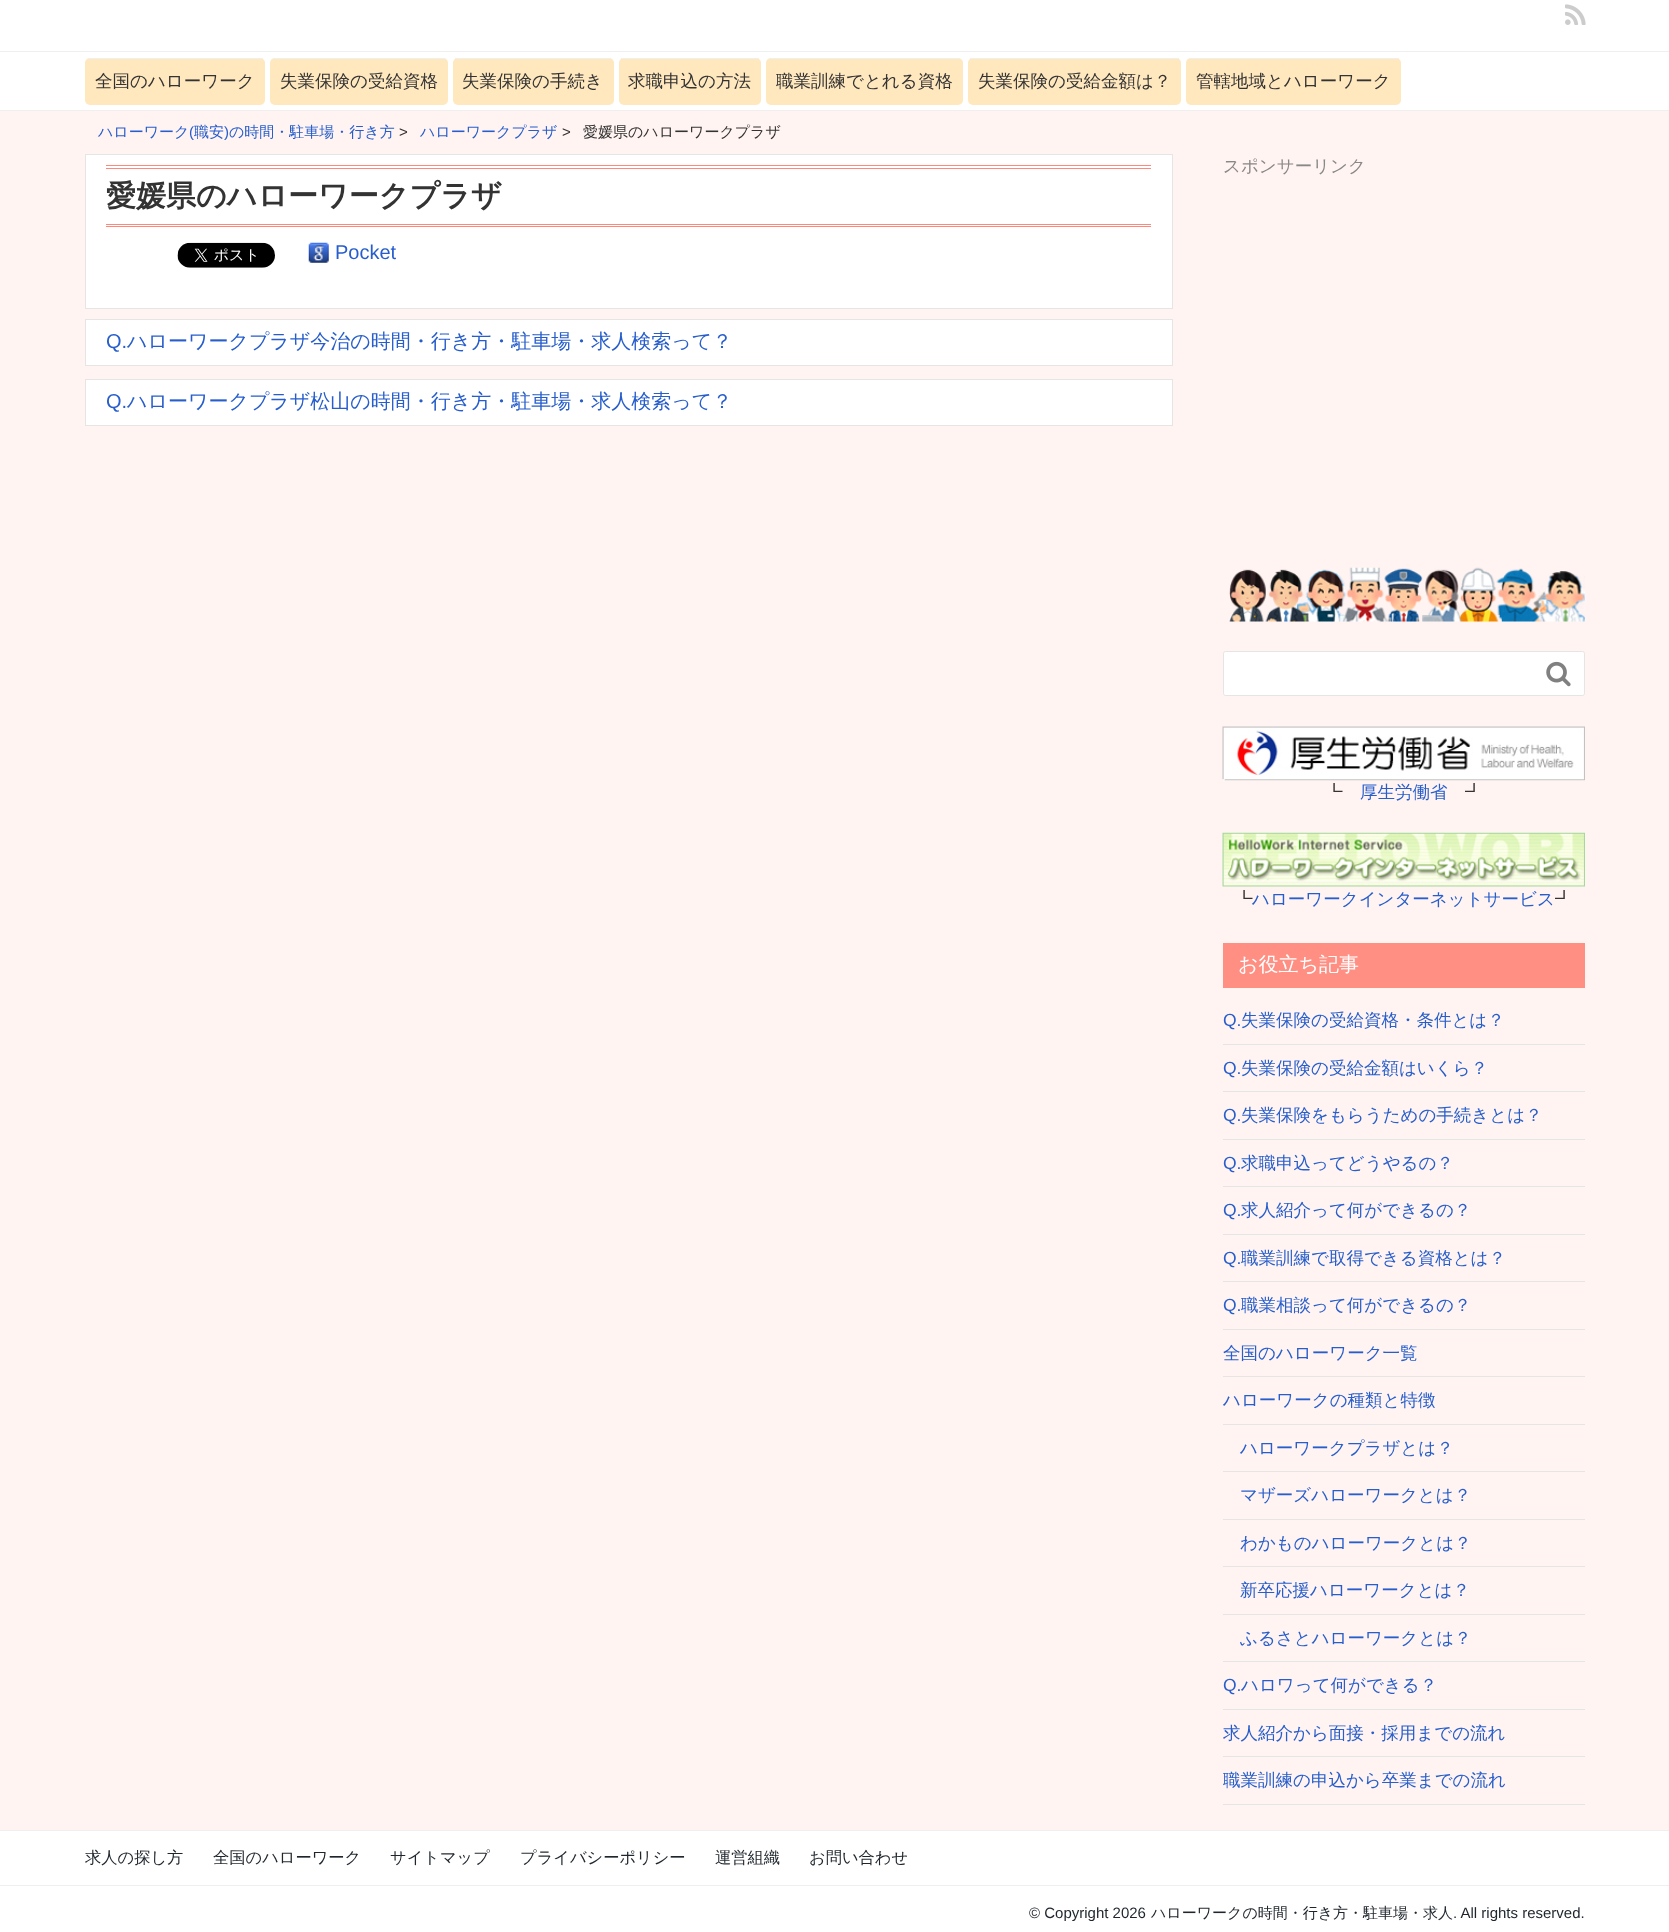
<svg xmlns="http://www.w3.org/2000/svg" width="1669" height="1932">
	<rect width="100%" height="100%" fill="#FFF4F2" />
	<rect x="0" y="0" width="1669" height="51" fill="#FFFFFF" />
	<image x="1565" y="4" width="21" height="21" href="assets/img1.png" />
	<rect x="0" y="52" width="1669" height="58" fill="#FFFFFF" />
	<rect x="0" y="51" width="1669" height="1" fill="#EFEFEF" />
	<rect x="0" y="110" width="1669" height="1" fill="#EFEFEF" />
	<rect x="85" y="58" width="180" height="47" rx="5" fill="#FFE7BE" />
	<rect x="88" y="58" width="175" height="1" fill="#EFEFEF" />
	<text x="95" y="87" font-family="WenQuanYi Zen Hei" font-size="17.5" font-weight="500" fill="#333333">全国のハローワーク</text>
	<rect x="270" y="58" width="178" height="47" rx="5" fill="#FFE7BE" />
	<rect x="273" y="58" width="172" height="1" fill="#EFEFEF" />
	<text x="280" y="87" font-family="WenQuanYi Zen Hei" font-size="17.5" font-weight="500" fill="#333333">失業保険の受給資格</text>
	<rect x="453" y="58" width="161" height="47" rx="5" fill="#FFE7BE" />
	<rect x="455" y="58" width="156" height="1" fill="#EFEFEF" />
	<text x="462" y="87" font-family="WenQuanYi Zen Hei" font-size="17.5" font-weight="500" fill="#333333">失業保険の手続き</text>
	<rect x="619" y="58" width="142" height="47" rx="5" fill="#FFE7BE" />
	<rect x="621" y="58" width="138" height="1" fill="#EFEFEF" />
	<text x="628" y="87" font-family="WenQuanYi Zen Hei" font-size="17.5" font-weight="500" fill="#333333">求職申込の方法</text>
	<rect x="766" y="58" width="197" height="47" rx="5" fill="#FFE7BE" />
	<rect x="769" y="58" width="191" height="1" fill="#EFEFEF" />
	<text x="776" y="87" font-family="WenQuanYi Zen Hei" font-size="17.5" font-weight="500" fill="#333333">職業訓練でとれる資格</text>
	<rect x="968" y="58" width="213" height="47" rx="5" fill="#FFE7BE" />
	<rect x="970" y="58" width="209" height="1" fill="#EFEFEF" />
	<text x="978" y="87" font-family="WenQuanYi Zen Hei" font-size="17.5" font-weight="500" fill="#333333">失業保険の受給金額は？</text>
	<rect x="1186" y="58" width="215" height="47" rx="5" fill="#FFE7BE" />
	<rect x="1189" y="58" width="210" height="1" fill="#EFEFEF" />
	<text x="1196" y="87" font-family="WenQuanYi Zen Hei" font-size="17.5" font-weight="500" fill="#333333">管轄地域とハローワーク</text>
	<text x="98" y="137" font-family="WenQuanYi Zen Hei" font-size="15" font-weight="500" fill="#275ECC">ハローワーク</text>
	<text x="189" y="137" font-family="Liberation Sans" font-size="15" fill="#275ECC">(</text>
	<text x="194" y="137" font-family="WenQuanYi Zen Hei" font-size="15" font-weight="500" fill="#275ECC">職安</text>
	<text x="224" y="137" font-family="Liberation Sans" font-size="15" fill="#275ECC">)</text>
	<text x="229" y="137" font-family="WenQuanYi Zen Hei" font-size="15" font-weight="500" fill="#275ECC">の時間・駐車場・行き方</text>
	<text x="399" y="137" font-family="Liberation Sans" font-size="15" fill="#333333">&gt;</text>
	<text x="420" y="137" font-family="WenQuanYi Zen Hei" font-size="15" font-weight="500" fill="#275ECC">ハローワークプラザ</text>
	<text x="562" y="137" font-family="Liberation Sans" font-size="15" fill="#333333">&gt;</text>
	<text x="583" y="137" font-family="WenQuanYi Zen Hei" font-size="15" font-weight="500" fill="#333333">愛媛県のハローワークプラザ</text>
	<rect x="85.5" y="154.5" width="1087" height="154" fill="#FFFFFF" stroke="#E5E5E5" />
	<rect x="106" y="165" width="1045" height="1" fill="#FF887C" />
	<rect x="106" y="168" width="1045" height="1" fill="#FF887C" />
	<rect x="106" y="224" width="1045" height="1" fill="#FF887C" />
	<rect x="106" y="226" width="1045" height="1" fill="#FF887C" />
	<text x="106" y="206" font-family="WenQuanYi Zen Hei" font-size="30" font-weight="700" fill="#333333">愛媛県のハローワークプラザ</text>
	<image x="177" y="242" width="98" height="26" href="assets/img2.png" />
	<image x="308" y="242" width="21" height="21" href="assets/img3.png" />
	<text x="335" y="259" font-family="Liberation Sans" font-size="20" fill="#275ECC">Pocket</text>
	<rect x="85.5" y="319.5" width="1087" height="46" fill="#FFFFFF" stroke="#E5E5E5" />
	<text x="106" y="348" font-family="Liberation Sans" font-size="20" fill="#275ECC">Q.</text>
	<text x="127" y="348" font-family="WenQuanYi Zen Hei" font-size="20" font-weight="500" fill="#275ECC">ハローワークプラザ今治の時間・行き方・駐車場・求人検索って？</text>
	<rect x="85.5" y="379.5" width="1087" height="46" fill="#FFFFFF" stroke="#E5E5E5" />
	<text x="106" y="408" font-family="Liberation Sans" font-size="20" fill="#275ECC">Q.</text>
	<text x="127" y="408" font-family="WenQuanYi Zen Hei" font-size="20" font-weight="500" fill="#275ECC">ハローワークプラザ松山の時間・行き方・駐車場・求人検索って？</text>
	<text x="1223" y="172" font-family="WenQuanYi Zen Hei" font-size="17.5" font-weight="500" fill="#888888">スポンサーリンク</text>
	<image x="1229" y="567" width="356" height="55" href="assets/img4.png" />
	<rect x="1223.5" y="651.5" width="361" height="44" rx="2" fill="#FFFFFF" stroke="#E5E5E5" />
	<image x="1546" y="661" width="25" height="26" href="assets/img5.png" />
	<image x="1222" y="726" width="363" height="55" href="assets/img6.png" />
	<text x="1325" y="798" font-family="WenQuanYi Zen Hei" font-size="17.5" font-weight="500" fill="#333333">┗</text>
	<text x="1360" y="798" font-family="WenQuanYi Zen Hei" font-size="17.5" font-weight="500" fill="#275ECC">厚生労働省</text>
	<text x="1465" y="798" font-family="WenQuanYi Zen Hei" font-size="17.5" font-weight="500" fill="#333333">┛</text>
	<image x="1222" y="832" width="363" height="55" href="assets/img7.png" />
	<text x="1235" y="905" font-family="WenQuanYi Zen Hei" font-size="17.5" font-weight="500" fill="#333333">┗</text>
	<text x="1252" y="905" font-family="WenQuanYi Zen Hei" font-size="17.5" font-weight="500" fill="#275ECC">ハローワークインターネットサービス</text>
	<text x="1555" y="905" font-family="WenQuanYi Zen Hei" font-size="17.5" font-weight="500" fill="#333333">┛</text>
	<rect x="1223" y="943" width="362" height="45" fill="#FF8F83" />
	<text x="1238" y="971" font-family="WenQuanYi Zen Hei" font-size="20" font-weight="500" fill="#FFFFFF">お役立ち記事</text>
	<rect x="1223" y="1044" width="362" height="1" fill="#E5E5E5" />
	<text x="1223" y="1026" font-family="Liberation Sans" font-size="17.5" fill="#275ECC">Q.</text>
	<text x="1241" y="1026" font-family="WenQuanYi Zen Hei" font-size="17.5" font-weight="500" fill="#275ECC">失業保険の受給資格・条件とは？</text>
	<rect x="1223" y="1091" width="362" height="1" fill="#E5E5E5" />
	<text x="1223" y="1074" font-family="Liberation Sans" font-size="17.5" fill="#275ECC">Q.</text>
	<text x="1241" y="1074" font-family="WenQuanYi Zen Hei" font-size="17.5" font-weight="500" fill="#275ECC">失業保険の受給金額はいくら？</text>
	<rect x="1223" y="1139" width="362" height="1" fill="#E5E5E5" />
	<text x="1223" y="1121" font-family="Liberation Sans" font-size="17.5" fill="#275ECC">Q.</text>
	<text x="1241" y="1121" font-family="WenQuanYi Zen Hei" font-size="17.5" font-weight="500" fill="#275ECC">失業保険をもらうための手続きとは？</text>
	<rect x="1223" y="1186" width="362" height="1" fill="#E5E5E5" />
	<text x="1223" y="1169" font-family="Liberation Sans" font-size="17.5" fill="#275ECC">Q.</text>
	<text x="1241" y="1169" font-family="WenQuanYi Zen Hei" font-size="17.5" font-weight="500" fill="#275ECC">求職申込ってどうやるの？</text>
	<rect x="1223" y="1234" width="362" height="1" fill="#E5E5E5" />
	<text x="1223" y="1216" font-family="Liberation Sans" font-size="17.5" fill="#275ECC">Q.</text>
	<text x="1241" y="1216" font-family="WenQuanYi Zen Hei" font-size="17.5" font-weight="500" fill="#275ECC">求人紹介って何ができるの？</text>
	<rect x="1223" y="1281" width="362" height="1" fill="#E5E5E5" />
	<text x="1223" y="1264" font-family="Liberation Sans" font-size="17.5" fill="#275ECC">Q.</text>
	<text x="1241" y="1264" font-family="WenQuanYi Zen Hei" font-size="17.5" font-weight="500" fill="#275ECC">職業訓練で取得できる資格とは？</text>
	<rect x="1223" y="1329" width="362" height="1" fill="#E5E5E5" />
	<text x="1223" y="1311" font-family="Liberation Sans" font-size="17.5" fill="#275ECC">Q.</text>
	<text x="1241" y="1311" font-family="WenQuanYi Zen Hei" font-size="17.5" font-weight="500" fill="#275ECC">職業相談って何ができるの？</text>
	<rect x="1223" y="1376" width="362" height="1" fill="#E5E5E5" />
	<text x="1223" y="1359" font-family="WenQuanYi Zen Hei" font-size="17.5" font-weight="500" fill="#275ECC">全国のハローワーク一覧</text>
	<rect x="1223" y="1424" width="362" height="1" fill="#E5E5E5" />
	<text x="1223" y="1406" font-family="WenQuanYi Zen Hei" font-size="17.5" font-weight="500" fill="#275ECC">ハローワークの種類と特徴</text>
	<rect x="1223" y="1471" width="362" height="1" fill="#E5E5E5" />
	<text x="1240" y="1454" font-family="WenQuanYi Zen Hei" font-size="17.5" font-weight="500" fill="#275ECC">ハローワークプラザとは？</text>
	<rect x="1223" y="1519" width="362" height="1" fill="#E5E5E5" />
	<text x="1240" y="1501" font-family="WenQuanYi Zen Hei" font-size="17.5" font-weight="500" fill="#275ECC">マザーズハローワークとは？</text>
	<rect x="1223" y="1566" width="362" height="1" fill="#E5E5E5" />
	<text x="1240" y="1549" font-family="WenQuanYi Zen Hei" font-size="17.5" font-weight="500" fill="#275ECC">わかものハローワークとは？</text>
	<rect x="1223" y="1614" width="362" height="1" fill="#E5E5E5" />
	<text x="1240" y="1596" font-family="WenQuanYi Zen Hei" font-size="17.5" font-weight="500" fill="#275ECC">新卒応援ハローワークとは？</text>
	<rect x="1223" y="1661" width="362" height="1" fill="#E5E5E5" />
	<text x="1240" y="1644" font-family="WenQuanYi Zen Hei" font-size="17.5" font-weight="500" fill="#275ECC">ふるさとハローワークとは？</text>
	<rect x="1223" y="1709" width="362" height="1" fill="#E5E5E5" />
	<text x="1223" y="1691" font-family="Liberation Sans" font-size="17.5" fill="#275ECC">Q.</text>
	<text x="1241" y="1691" font-family="WenQuanYi Zen Hei" font-size="17.5" font-weight="500" fill="#275ECC">ハロワって何ができる？</text>
	<rect x="1223" y="1756" width="362" height="1" fill="#E5E5E5" />
	<text x="1223" y="1739" font-family="WenQuanYi Zen Hei" font-size="17.5" font-weight="500" fill="#275ECC">求人紹介から面接・採用までの流れ</text>
	<rect x="1223" y="1804" width="362" height="1" fill="#E5E5E5" />
	<text x="1223" y="1786" font-family="WenQuanYi Zen Hei" font-size="17.5" font-weight="500" fill="#275ECC">職業訓練の申込から卒業までの流れ</text>
	<rect x="0" y="1831" width="1669" height="54" fill="#FFFFFF" />
	<rect x="0" y="1830" width="1669" height="1" fill="#EFEFEF" />
	<g font-family="WenQuanYi Zen Hei" font-size="16.25" font-weight="500" fill="#1E252C">
		<text x="85" y="1863">求人の探し方</text>
		<text x="213" y="1863">全国のハローワーク</text>
		<text x="390" y="1863">サイトマップ</text>
		<text x="520" y="1863">プライバシーポリシー</text>
		<text x="715" y="1863">運営組織</text>
		<text x="809" y="1863">お問い合わせ</text>
	</g>
	<rect x="0" y="1886" width="1669" height="46" fill="#FFFFFF" />
	<rect x="0" y="1885" width="1669" height="1" fill="#EFEFEF" />
	<text x="1029" y="1918" font-family="Liberation Sans" font-size="15" fill="#1E252C">© Copyright 2026</text>
	<text x="1151" y="1918" font-family="WenQuanYi Zen Hei" font-size="15" font-weight="500" fill="#1E252C">ハローワークの時間・行き方・駐車場・求人</text>
	<text x="1453" y="1918" font-family="Liberation Sans" font-size="15" fill="#1E252C">. All rights reserved.</text>
</svg>
